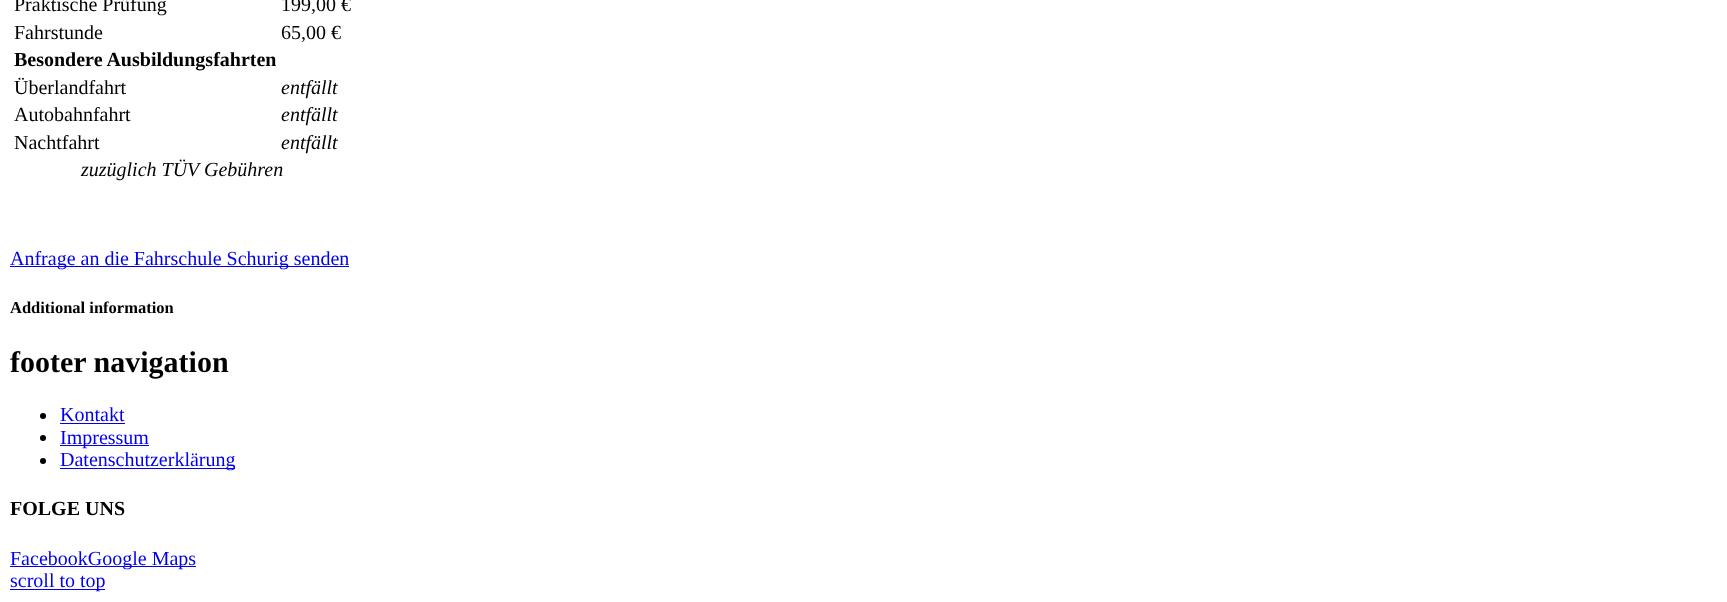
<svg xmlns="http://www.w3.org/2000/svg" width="1727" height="602">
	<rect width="100%" height="100%" fill="#FFFFFF" />
	<g font-family="Liberation Serif" font-size="20" fill="#000000">
		<text x="14" y="11">Praktische Prüfung</text>
		<text x="281" y="11">199,00 €</text>
		<text x="14" y="39">Fahrstunde</text>
		<text x="281" y="39">65,00 €</text>
	</g>
	<text x="14" y="66" font-family="Liberation Serif" font-size="20" font-weight="700" fill="#000000">Besondere Ausbildungsfahrten</text>
	<text x="14" y="94" font-family="Liberation Serif" font-size="20" fill="#000000">Überlandfahrt</text>
	<text x="281" y="94" font-family="Liberation Serif" font-size="20" font-style="italic" fill="#000000">entfällt</text>
	<text x="14" y="121" font-family="Liberation Serif" font-size="20" fill="#000000">Autobahnfahrt</text>
	<text x="281" y="121" font-family="Liberation Serif" font-size="20" font-style="italic" fill="#000000">entfällt</text>
	<text x="14" y="149" font-family="Liberation Serif" font-size="20" fill="#000000">Nachtfahrt</text>
	<g font-family="Liberation Serif" font-size="20" font-style="italic" fill="#000000">
		<text x="281" y="149">entfällt</text>
		<text x="81" y="176">zuzüglich TÜV Gebühren</text>
	</g>
	<rect x="10" y="266" width="339" height="1" fill="#0000EE" />
	<text x="10" y="265" font-family="Liberation Serif" font-size="20" fill="#0000EE">Anfrage an die Fahrschule Schurig senden</text>
	<text x="10" y="313" font-family="Liberation Serif" font-size="16.5" font-weight="700" fill="#000000">Additional information</text>
	<text x="10" y="372" font-family="Liberation Serif" font-size="30" font-weight="700" fill="#000000">footer navigation</text>
	<circle cx="43" cy="416" r="3" fill="#000000" />
	<text x="60" y="421" font-family="Liberation Serif" font-size="20" fill="#0000EE">Kontakt</text>
	<rect x="60" y="423" width="65" height="1" fill="#0000EE" />
	<circle cx="43" cy="438" r="3" fill="#000000" />
	<rect x="60" y="445" width="89" height="1" fill="#0000EE" />
	<text x="60" y="444" font-family="Liberation Serif" font-size="20" fill="#0000EE">Impressum</text>
	<circle cx="43" cy="461" r="3" fill="#000000" />
	<rect x="60" y="468" width="175" height="1" fill="#0000EE" />
	<text x="60" y="466" font-family="Liberation Serif" font-size="20" fill="#0000EE">Datenschutzerklärung</text>
	<text x="10" y="515" font-family="Liberation Serif" font-size="20" font-weight="700" fill="#000000">FOLGE UNS</text>
	<rect x="10" y="566" width="186" height="1" fill="#0000EE" />
	<text x="10" y="565" font-family="Liberation Serif" font-size="20" fill="#0000EE">FacebookGoogle Maps</text>
	<rect x="10" y="589" width="95" height="1" fill="#0000EE" />
	<text x="10" y="587" font-family="Liberation Serif" font-size="20" fill="#0000EE">scroll to top</text>
</svg>
